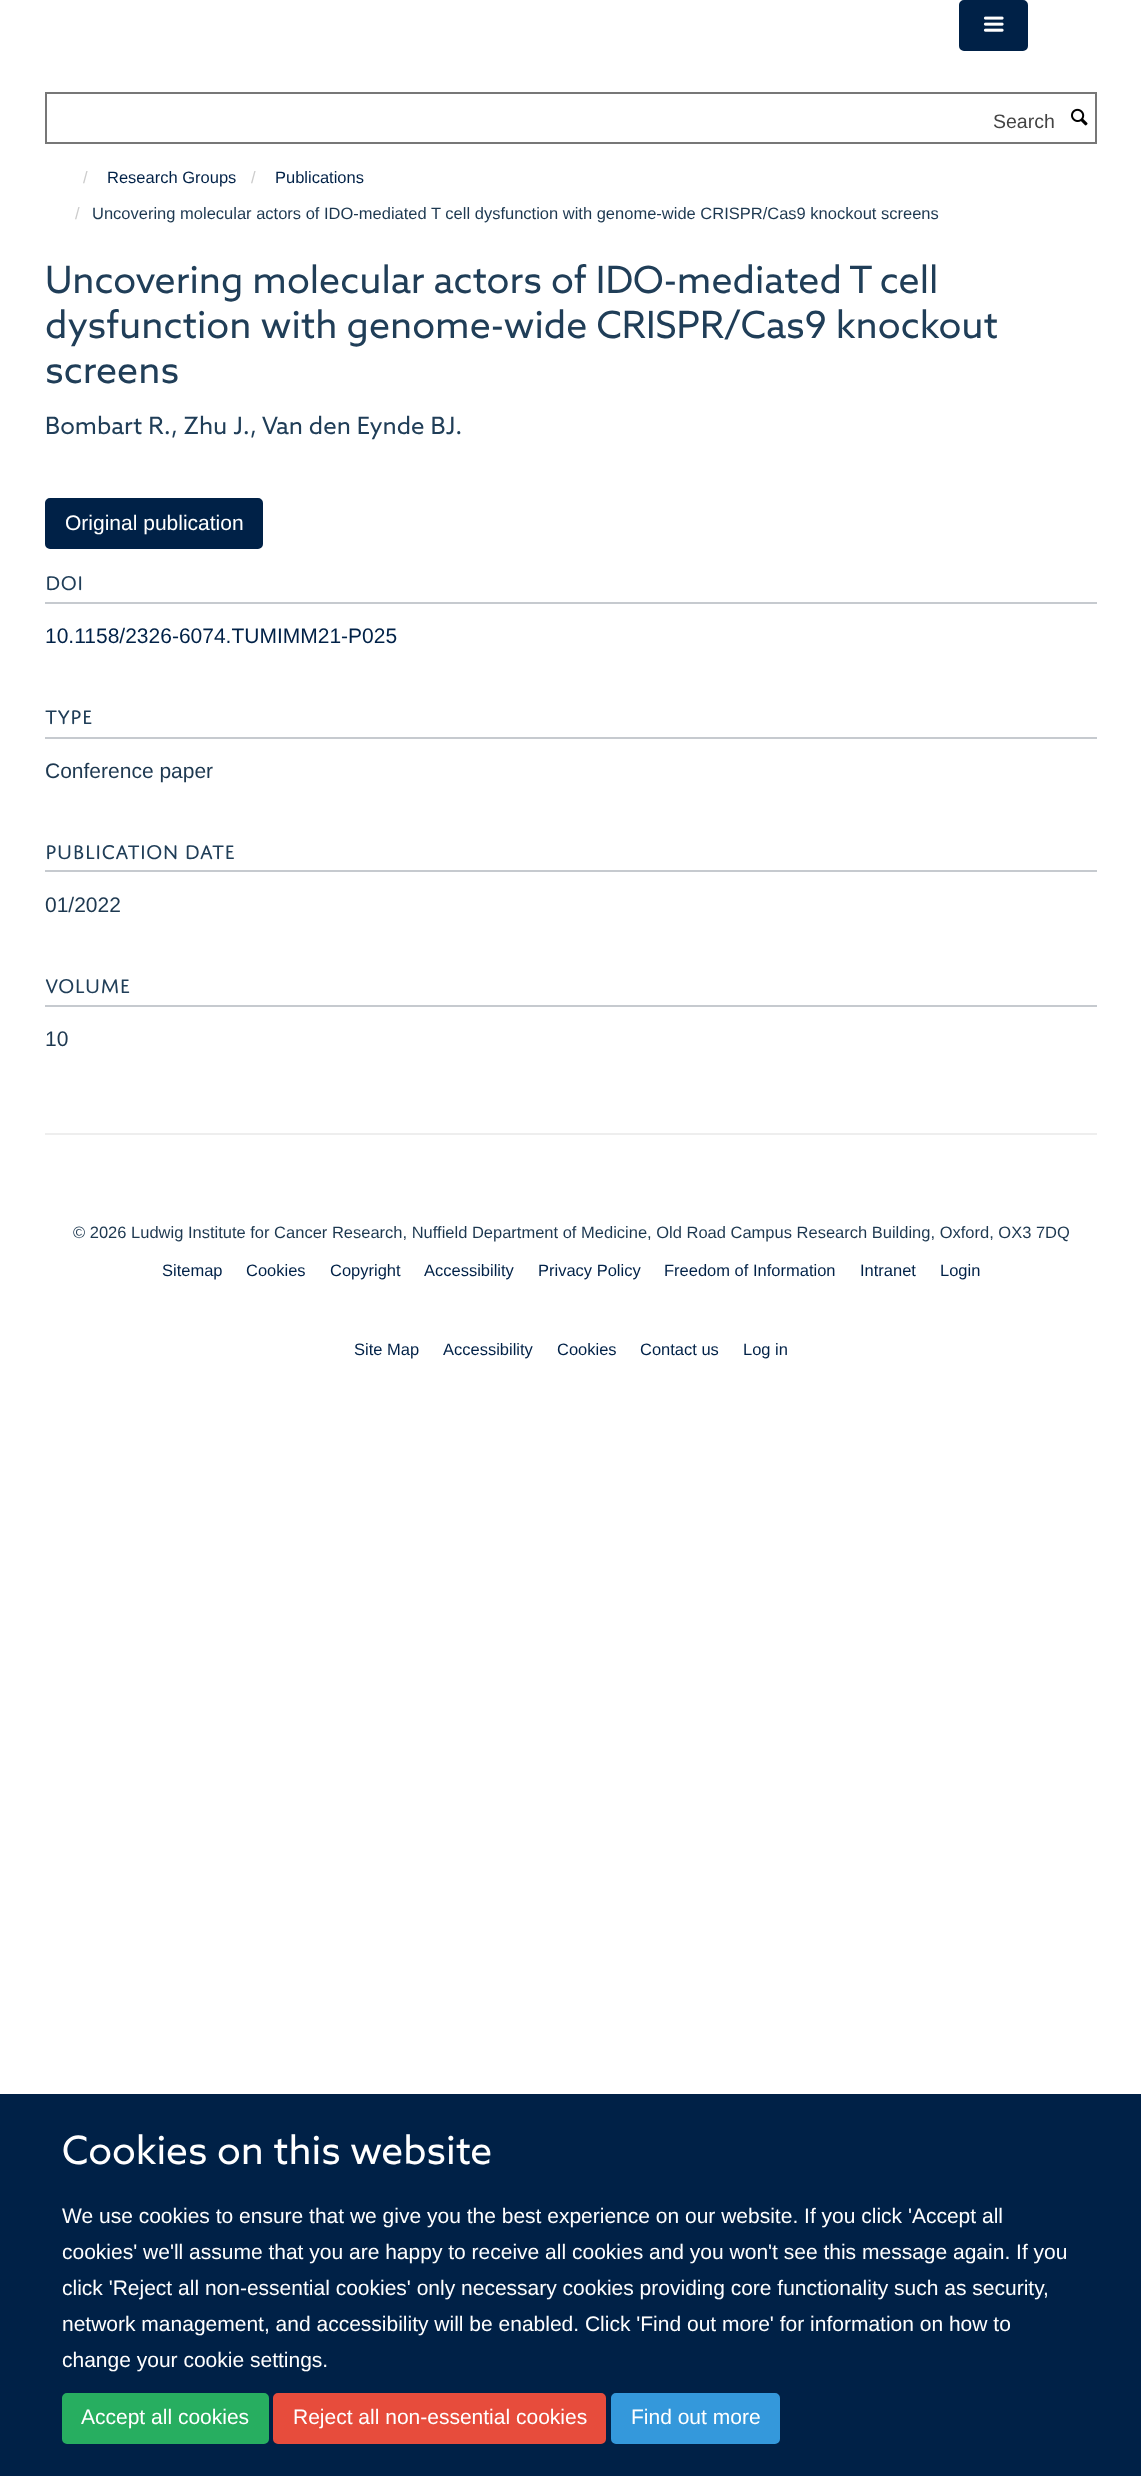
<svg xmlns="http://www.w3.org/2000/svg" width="1141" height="2476">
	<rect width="100%" height="100%" fill="#FFFFFF" />
	<rect x="960" y="1" width="67" height="49" rx="4" fill="#002147" stroke="#002147" stroke-width="2" />
	<image x="983" y="16" width="21" height="16" href="assets/img1.png" />
	<rect x="46" y="93" width="1050" height="50" fill="none" stroke="#777777" stroke-width="2" />
	<text x="993" y="128" font-family="Liberation Sans" font-size="19.5" fill="#444444">Search</text>
	<image x="1071" y="108" width="17" height="18" href="assets/img2.png" />
	<text x="83" y="183" font-family="Liberation Sans" font-size="16.5" fill="#CCCCCC">/</text>
	<text x="107" y="183" font-family="Liberation Sans" font-size="16.5" fill="#002147">Research Groups</text>
	<text x="251" y="183" font-family="Liberation Sans" font-size="16.5" fill="#CCCCCC">/</text>
	<text x="275" y="183" font-family="Liberation Sans" font-size="16.5" fill="#002147">Publications</text>
	<text x="75" y="219" font-family="Liberation Sans" font-size="16.5" fill="#CCCCCC">/</text>
	<text x="92" y="219" font-family="Liberation Sans" font-size="16.5" fill="#1D3850">Uncovering molecular actors of IDO-mediated T cell dysfunction with genome-wide CRISPR/Cas9 knockout screens</text>
	<g font-family="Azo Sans" font-size="37.5" fill="#203E58">
		<text x="45" y="293">Uncovering molecular actors of IDO-mediated T cell</text>
		<text x="45" y="338">dysfunction with genome-wide CRISPR/Cas9 knockout</text>
		<text x="45" y="383">screens</text>
	</g>
	<text x="45" y="434" font-family="Azo Sans" font-size="24" fill="#203E58">Bombart R., Zhu J., Van den Eynde BJ.</text>
	<rect x="46" y="499" width="216" height="49" rx="4" fill="#002147" stroke="#002147" stroke-width="2" />
	<text x="65" y="530" font-family="Liberation Sans" font-size="21" fill="#FFFFFF">Original publication</text>
	<rect x="45" y="602" width="1052" height="2" fill="#C6CACF" />
	<text x="45" y="590" font-family="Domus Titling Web" font-size="21" fill="#203E58">DOI</text>
	<text x="45" y="643" font-family="Liberation Sans" font-size="21" fill="#002147">10.1158/2326-6074.TUMIMM21-P025</text>
	<rect x="45" y="737" width="1052" height="2" fill="#C6CACF" />
	<text x="45" y="724" font-family="Domus Titling Web" font-size="21" fill="#203E58">TYPE</text>
	<text x="45" y="778" font-family="Liberation Sans" font-size="21" fill="#1D3850">Conference paper</text>
	<rect x="45" y="870" width="1052" height="2" fill="#C6CACF" />
	<text x="45" y="859" font-family="Domus Titling Web" font-size="21" fill="#203E58">PUBLICATION DATE</text>
	<text x="45" y="912" font-family="Liberation Sans" font-size="21" fill="#1D3850">01/2022</text>
	<rect x="45" y="1005" width="1052" height="2" fill="#C6CACF" />
	<text x="45" y="993" font-family="Domus Titling Web" font-size="21" fill="#203E58">VOLUME</text>
	<text x="45" y="1046" font-family="Liberation Sans" font-size="21" fill="#1D3850">10</text>
	<rect x="45" y="1133" width="1052" height="2" fill="#EEEEEE" />
	<text x="73" y="1238" font-family="Liberation Sans" font-size="16.5" fill="#1D3850">© 2026 Ludwig Institute for Cancer Research, Nuffield Department of Medicine, Old Road Campus Research Building, Oxford, OX3 7DQ</text>
	<g font-family="Liberation Sans" font-size="16.5" fill="#002147">
		<text x="162" y="1276">Sitemap</text>
		<text x="246" y="1276">Cookies</text>
		<text x="330" y="1276">Copyright</text>
		<text x="424" y="1276">Accessibility</text>
		<text x="538" y="1276">Privacy Policy</text>
		<text x="664" y="1276">Freedom of Information</text>
		<text x="860" y="1276">Intranet</text>
		<text x="940" y="1276">Login</text>
		<text x="354" y="1355">Site Map</text>
		<text x="443" y="1355">Accessibility</text>
		<text x="557" y="1355">Cookies</text>
		<text x="640" y="1355">Contact us</text>
		<text x="743" y="1355">Log in</text>
	</g>
	<rect x="0" y="2094" width="1141" height="382" fill="#002147" />
	<text x="62" y="2164" font-family="Azo Sans" font-size="39" fill="#FFFFFF">Cookies on this website</text>
	<g font-family="Liberation Sans" font-size="21" fill="#FFFFFF">
		<text x="62" y="2223">We use cookies to ensure that we give you the best experience on our website. If you click 'Accept all</text>
		<text x="62" y="2259">cookies' we'll assume that you are happy to receive all cookies and you won't see this message again. If you</text>
		<text x="62" y="2295">click 'Reject all non-essential cookies' only necessary cookies providing core functionality such as security,</text>
		<text x="62" y="2331">network management, and accessibility will be enabled. Click 'Find out more' for information on how to</text>
		<text x="62" y="2367">change your cookie settings.</text>
	</g>
	<rect x="63" y="2394" width="205" height="49" rx="4" fill="#27AE60" stroke="#27AE60" stroke-width="2" />
	<text x="81" y="2424" font-family="Liberation Sans" font-size="21" fill="#FFFFFF">Accept all cookies</text>
	<rect x="274" y="2394" width="331" height="49" rx="4" fill="#E74C3C" stroke="#E74C3C" stroke-width="2" />
	<text x="293" y="2424" font-family="Liberation Sans" font-size="21" fill="#FFFFFF">Reject all non-essential cookies</text>
	<rect x="612" y="2394" width="167" height="49" rx="4" fill="#3498DB" stroke="#3498DB" stroke-width="2" />
	<text x="631" y="2424" font-family="Liberation Sans" font-size="21" fill="#FFFFFF">Find out more</text>
</svg>
